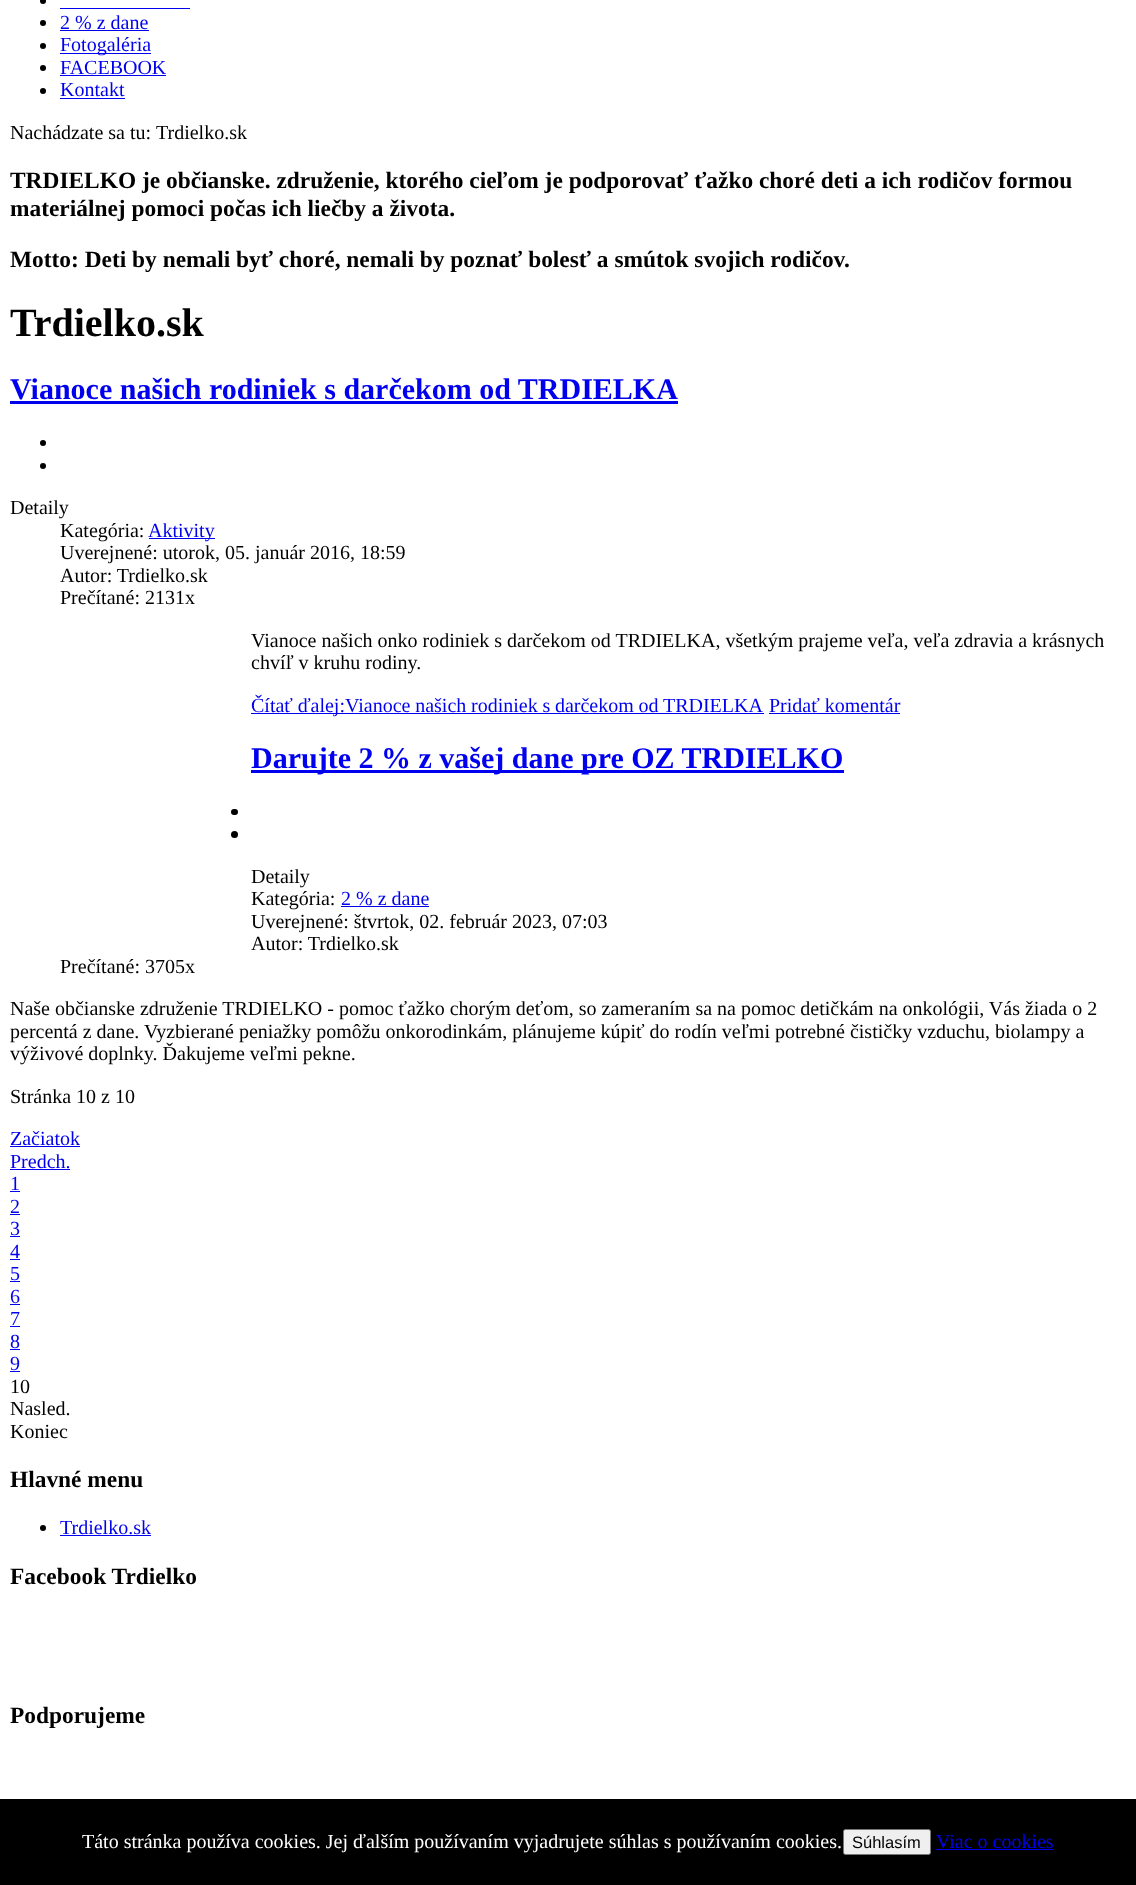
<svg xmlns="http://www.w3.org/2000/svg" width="1136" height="1885">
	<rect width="100%" height="100%" fill="#FFFFFF" />
	<circle cx="43" cy="1" r="3" fill="#000000" />
	<rect x="60" y="8" width="130" height="1" fill="#0000EE" />
	<circle cx="43" cy="23" r="3" fill="#000000" />
	<text x="60" y="29" font-family="Liberation Serif" font-size="20" fill="#0000EE">2 % z dane</text>
	<rect x="60" y="30" width="89" height="1" fill="#0000EE" />
	<circle cx="43" cy="46" r="3" fill="#000000" />
	<rect x="60" y="53" width="91" height="1" fill="#0000EE" />
	<text x="60" y="51" font-family="Liberation Serif" font-size="20" fill="#0000EE">Fotogaléria</text>
	<circle cx="43" cy="68" r="3" fill="#000000" />
	<text x="60" y="74" font-family="Liberation Serif" font-size="20" fill="#0000EE">FACEBOOK</text>
	<rect x="60" y="75" width="106" height="1" fill="#0000EE" />
	<circle cx="43" cy="91" r="3" fill="#000000" />
	<text x="60" y="96" font-family="Liberation Serif" font-size="20" fill="#0000EE">Kontakt</text>
	<rect x="60" y="98" width="65" height="1" fill="#0000EE" />
	<g font-family="Liberation Serif" font-size="20" fill="#000000">
		<text x="10" y="139">Nachádzate sa tu:</text>
		<text x="156" y="139">Trdielko.sk</text>
	</g>
	<g font-family="Liberation Serif" font-size="23.4" font-weight="700" fill="#000000">
		<text x="10" y="188">TRDIELKO je občianske. združenie, ktorého cieľom je podporovať ťažko choré deti a ich rodičov formou</text>
		<text x="10" y="216">materiálnej pomoci počas ich liečby a života.</text>
		<text x="10" y="267">Motto: Deti by nemali byť choré, nemali by poznať bolesť a smútok svojich rodičov.</text>
	</g>
	<text x="10" y="336" font-family="Liberation Serif" font-size="40" font-weight="700" fill="#000000">Trdielko.sk</text>
	<text x="10" y="399" font-family="Liberation Serif" font-size="30" font-weight="700" fill="#0000EE">Vianoce našich rodiniek s darčekom od TRDIELKA</text>
	<rect x="10" y="401" width="668" height="3" fill="#0000EE" />
	<circle cx="43" cy="443" r="3" fill="#000000" />
	<circle cx="43" cy="466" r="3" fill="#000000" />
	<g font-family="Liberation Serif" font-size="20" fill="#000000">
		<text x="10" y="514">Detaily</text>
		<text x="60" y="537">Kategória:</text>
	</g>
	<rect x="149" y="538" width="66" height="1" fill="#0000EE" />
	<text x="148" y="537" font-family="Liberation Serif" font-size="20" fill="#0000EE">Aktivity</text>
	<g font-family="Liberation Serif" font-size="20" fill="#000000">
		<text x="60" y="559">Uverejnené: utorok, 05. január 2016, 18:59</text>
		<text x="60" y="582">Autor: Trdielko.sk</text>
		<text x="60" y="604">Prečítané: 2131x</text>
		<text x="251" y="647">Vianoce našich onko rodiniek s darčekom od TRDIELKA, všetkým prajeme veľa, veľa zdravia a krásnych</text>
		<text x="251" y="669">chvíľ v kruhu rodiny.</text>
	</g>
	<rect x="251" y="713" width="513" height="1" fill="#0000EE" />
	<g font-family="Liberation Serif" font-size="20" fill="#0000EE">
		<text x="251" y="712" word-spacing="-0.25">Čítať ďalej:Vianoce našich rodiniek s darčekom od TRDIELKA</text>
		<text x="769" y="712">Pridať komentár</text>
	</g>
	<rect x="769" y="713" width="131" height="1" fill="#0000EE" />
	<rect x="251" y="770" width="593" height="3" fill="#0000EE" />
	<text x="251" y="768" font-family="Liberation Serif" font-size="30" font-weight="700" fill="#0000EE">Darujte 2 % z vašej dane pre OZ TRDIELKO</text>
	<rect x="231" y="809" width="7" height="6" rx="3" fill="#000000" />
	<circle cx="234.5" cy="834.5" r="3.5" fill="#000000" />
	<g font-family="Liberation Serif" font-size="20" fill="#000000">
		<text x="251" y="883">Detaily</text>
		<text x="251" y="905">Kategória:</text>
	</g>
	<text x="341" y="905" font-family="Liberation Serif" font-size="20" fill="#0000EE">2 % z dane</text>
	<rect x="341" y="906" width="88" height="1" fill="#0000EE" />
	<g font-family="Liberation Serif" font-size="20" fill="#000000">
		<text x="251" y="928">Uverejnené: štvrtok, 02. február 2023, 07:03</text>
		<text x="251" y="950">Autor: Trdielko.sk</text>
		<text x="60" y="973">Prečítané: 3705x</text>
		<text x="10" y="1015">Naše občianske združenie TRDIELKO - pomoc ťažko chorým deťom, so zameraním sa na pomoc detičkám na onkológii, Vás žiada o 2</text>
		<text x="10" y="1038">percentá z dane. Vyzbierané peniažky pomôžu onkorodinkám, plánujeme kúpiť do rodín veľmi potrebné čističky vzduchu, biolampy a</text>
		<text x="10" y="1060">výživové doplnky. Ďakujeme veľmi pekne.</text>
		<text x="10" y="1103">Stránka 10 z 10</text>
	</g>
	<text x="10" y="1145" font-family="Liberation Serif" font-size="20" fill="#0000EE">Začiatok</text>
	<rect x="10" y="1146" width="70" height="1" fill="#0000EE" />
	<text x="10" y="1168" font-family="Liberation Serif" font-size="20" fill="#0000EE">Predch.</text>
	<rect x="10" y="1169" width="60" height="1" fill="#0000EE" />
	<text x="10" y="1190" font-family="Liberation Serif" font-size="20" fill="#0000EE">1</text>
	<rect x="10" y="1191" width="10" height="1" fill="#0000EE" />
	<text x="10" y="1213" font-family="Liberation Serif" font-size="20" fill="#0000EE">2</text>
	<rect x="10" y="1214" width="10" height="1" fill="#0000EE" />
	<text x="10" y="1235" font-family="Liberation Serif" font-size="20" fill="#0000EE">3</text>
	<rect x="10" y="1236" width="10" height="1" fill="#0000EE" />
	<text x="10" y="1258" font-family="Liberation Serif" font-size="20" fill="#0000EE">4</text>
	<rect x="10" y="1259" width="10" height="1" fill="#0000EE" />
	<text x="10" y="1280" font-family="Liberation Serif" font-size="20" fill="#0000EE">5</text>
	<rect x="10" y="1281" width="10" height="1" fill="#0000EE" />
	<text x="10" y="1303" font-family="Liberation Serif" font-size="20" fill="#0000EE">6</text>
	<rect x="10" y="1304" width="10" height="1" fill="#0000EE" />
	<text x="10" y="1325" font-family="Liberation Serif" font-size="20" fill="#0000EE">7</text>
	<rect x="10" y="1326" width="10" height="1" fill="#0000EE" />
	<text x="10" y="1348" font-family="Liberation Serif" font-size="20" fill="#0000EE">8</text>
	<rect x="10" y="1349" width="10" height="1" fill="#0000EE" />
	<text x="10" y="1370" font-family="Liberation Serif" font-size="20" fill="#0000EE">9</text>
	<rect x="10" y="1371" width="10" height="1" fill="#0000EE" />
	<g font-family="Liberation Serif" font-size="20" fill="#000000">
		<text x="10" y="1393">10</text>
		<text x="10" y="1415">Nasled.</text>
		<text x="10" y="1438">Koniec</text>
	</g>
	<text x="10" y="1487" font-family="Liberation Serif" font-size="23.4" font-weight="700" fill="#000000">Hlavné menu</text>
	<circle cx="43" cy="1528" r="3" fill="#000000" />
	<text x="60" y="1534" font-family="Liberation Serif" font-size="20" fill="#0000EE">Trdielko.sk</text>
	<rect x="60" y="1535" width="91" height="1" fill="#0000EE" />
	<g font-family="Liberation Serif" font-size="23.4" font-weight="700" fill="#000000">
		<text x="10" y="1584">Facebook Trdielko</text>
		<text x="10" y="1723">Podporujeme</text>
	</g>
	<rect x="0" y="1799" width="1136" height="86" fill="#000000" />
	<text x="82" y="1848" font-family="Liberation Serif" font-size="20" fill="#FFFFFF">Táto stránka používa cookies. Jej ďalším používaním vyjadrujete súhlas s používaním cookies.</text>
	<rect x="843.5" y="1829.5" width="87" height="25" rx="2" fill="#EFEFEF" stroke="#767676" />
	<text x="852" y="1848" font-family="Liberation Sans" font-size="16.5" fill="#000000">Súhlasím</text>
	<text x="936" y="1848" font-family="Liberation Serif" font-size="20" fill="#0000EE">Viac o cookies</text>
	<rect x="936" y="1849" width="118" height="1" fill="#0000EE" />
</svg>
